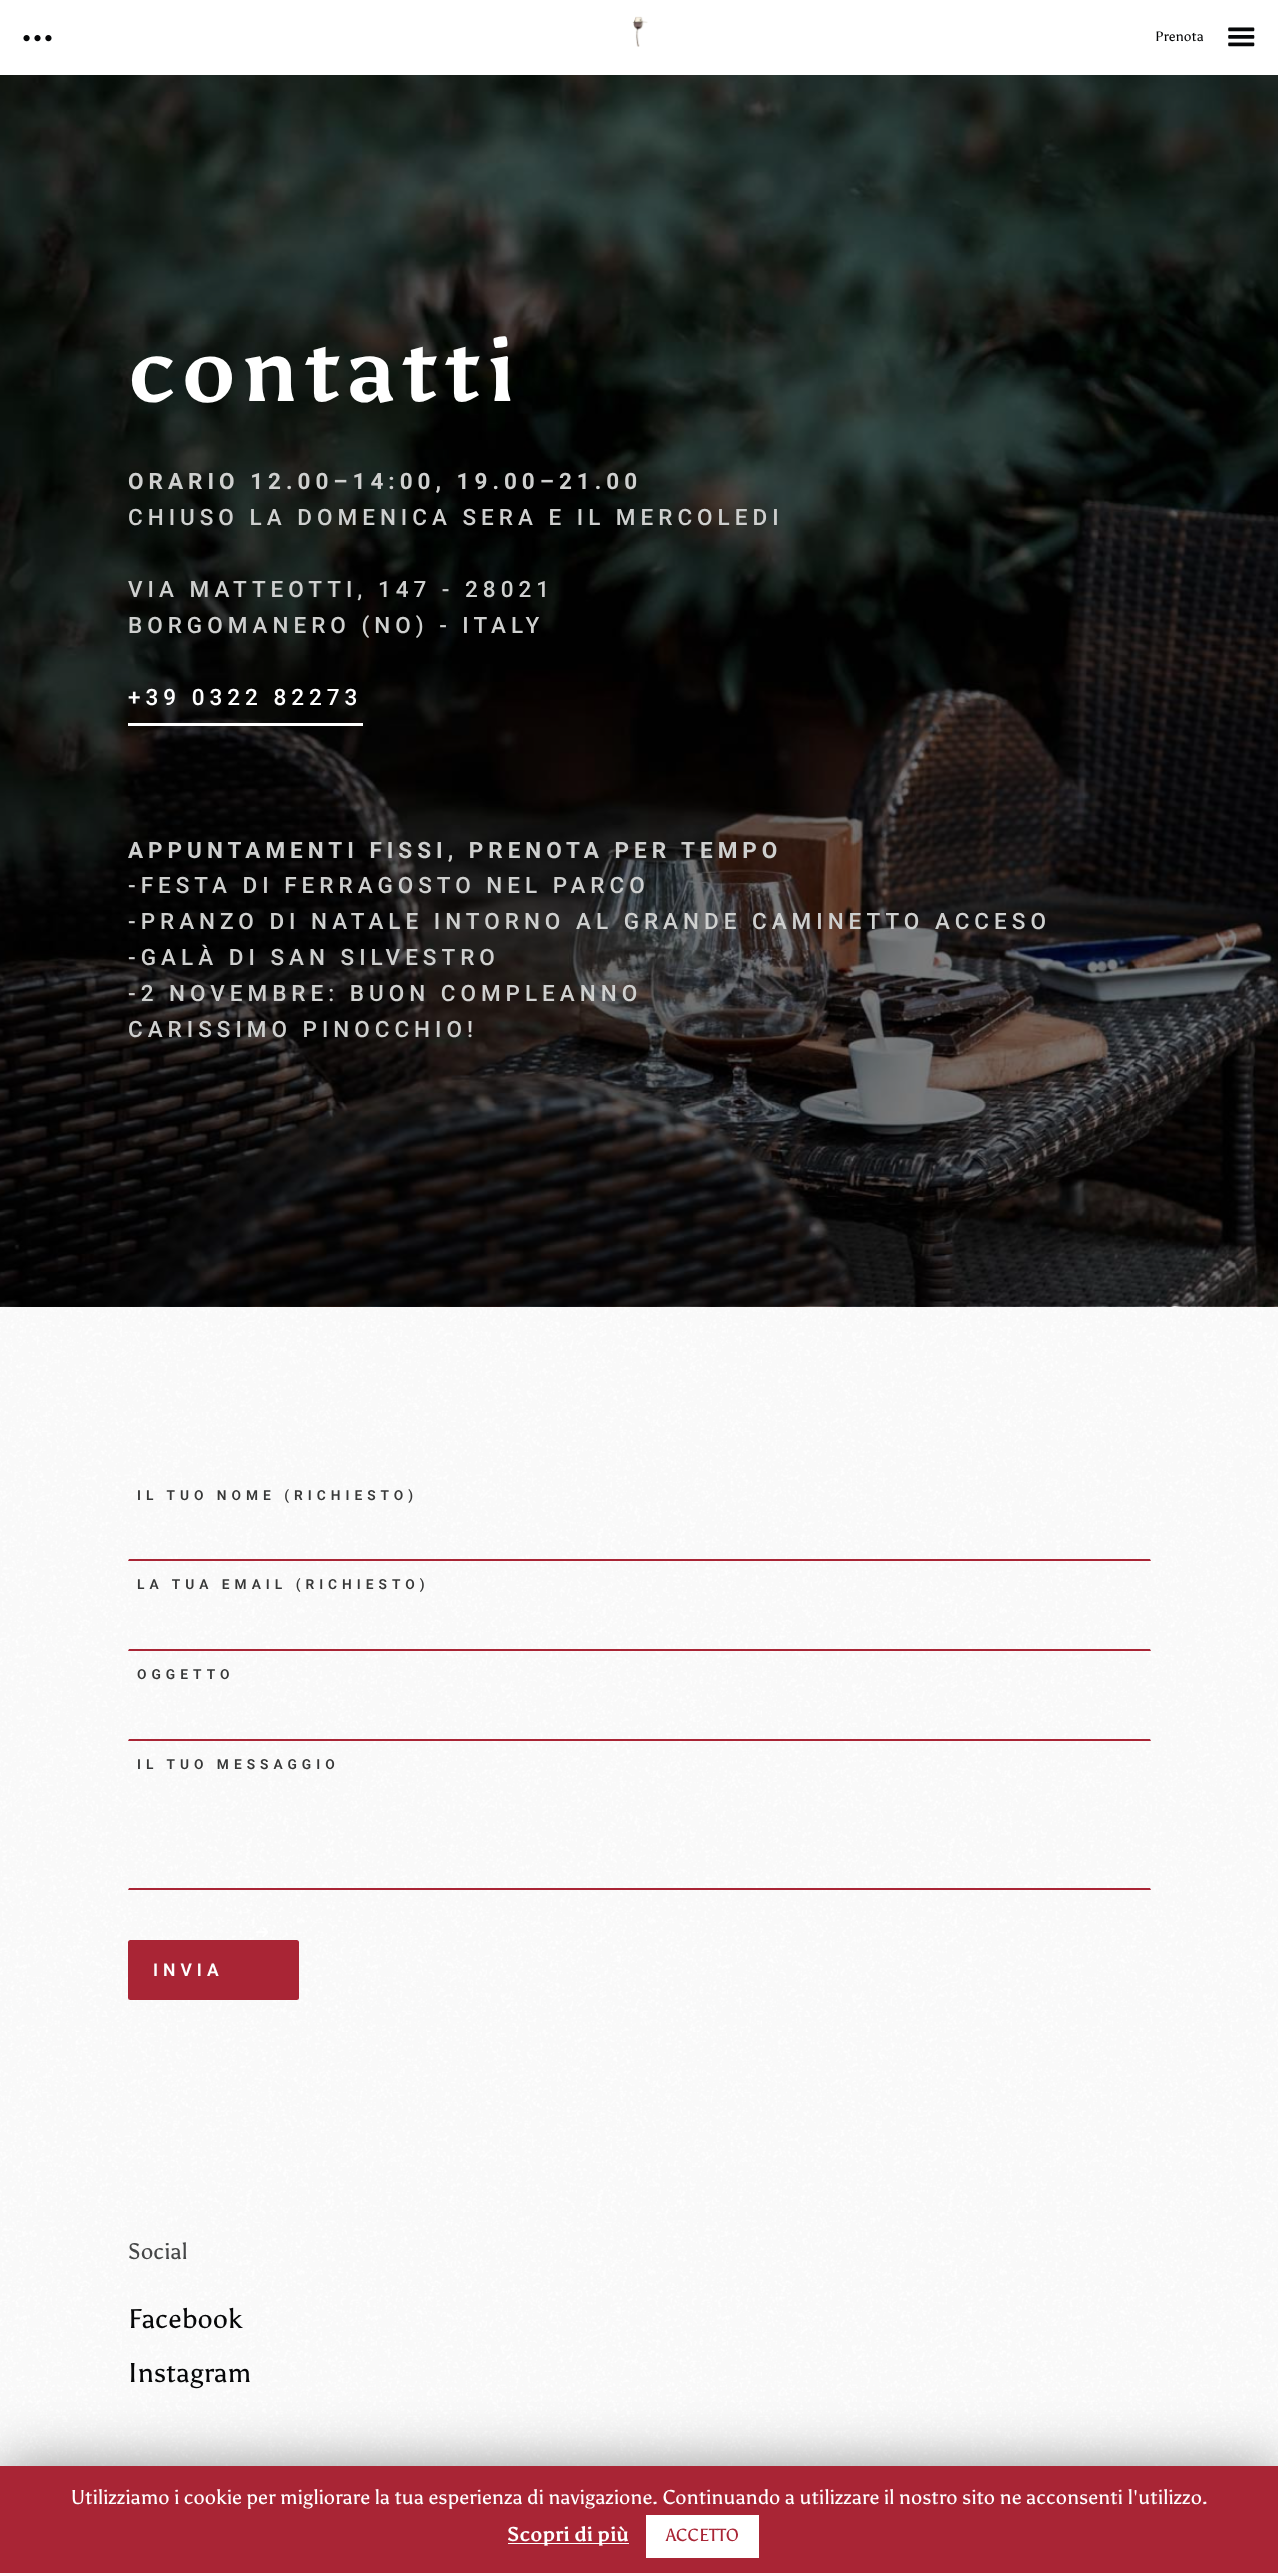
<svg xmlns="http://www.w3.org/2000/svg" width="1278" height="2573">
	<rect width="100%" height="100%" fill="#FFFFFF" />
	<image x="23" y="35" width="29" height="7" href="assets/img1.png" />
	<image x="632" y="16" width="16" height="31" href="assets/img2.png" />
	<text x="1155" y="41" font-family="Asul" font-size="13.75" fill="#060708">Prenota</text>
	<image x="1228" y="27" width="27" height="20" href="assets/img3.png" />
	<image x="0" y="75" width="1278" height="1232" href="assets/img4.png" />
	<text x="128" y="401" font-family="Asul" font-size="89.5" font-weight="700" letter-spacing="5" fill="#FFFFFF">contatti</text>
	<text x="128" y="489" font-family="Roboto" font-size="22.5" font-weight="700" letter-spacing="5" fill="#CFD0CF">ORARIO 12.00–14:00, 19.00–21.00</text>
	<g font-family="Roboto" font-size="22.5" font-weight="500" letter-spacing="5" fill="#CFD0CF">
		<text x="128" y="525">CHIUSO LA DOMENICA SERA E IL MERCOLEDI</text>
		<text x="128" y="597">VIA MATTEOTTI, 147 - 28021</text>
		<text x="128" y="633">BORGOMANERO (NO) - ITALY</text>
	</g>
	<rect x="128" y="723" width="235" height="3" fill="#FFFFFF" />
	<text x="128" y="705" font-family="Roboto" font-size="22.5" font-weight="500" letter-spacing="5" fill="#FFFFFF">+39 0322 82273</text>
	<text x="128" y="858" font-family="Roboto" font-size="22.5" font-weight="700" letter-spacing="5" fill="#CFD0CF">APPUNTAMENTI FISSI, PRENOTA PER TEMPO</text>
	<g font-family="Roboto" font-size="22.5" font-weight="500" letter-spacing="5" fill="#CFD0CF">
		<text x="128" y="893">-FESTA DI FERRAGOSTO NEL PARCO</text>
		<text x="128" y="929">-PRANZO DI NATALE INTORNO AL GRANDE CAMINETTO ACCESO</text>
		<text x="128" y="965">-GALÀ DI SAN SILVESTRO</text>
		<text x="128" y="1001">-2 NOVEMBRE: BUON COMPLEANNO</text>
		<text x="128" y="1037">CARISSIMO PINOCCHIO!</text>
	</g>
	<image x="0" y="1307" width="1278" height="1159" href="assets/img6.png" />
	<path d="M1151 1561H128L129 1559H1150Z" fill="#A92535" />
	<text x="137" y="1500" font-family="Roboto" font-size="13.75" font-weight="600" letter-spacing="5" fill="#373838">IL TUO NOME (RICHIESTO)</text>
	<path d="M1151 1651H128L129 1649H1150Z" fill="#A92535" />
	<text x="137" y="1589" font-family="Roboto" font-size="13.75" font-weight="600" letter-spacing="5" fill="#373838">LA TUA EMAIL (RICHIESTO)</text>
	<path d="M1151 1741H128L129 1739H1150Z" fill="#A92535" />
	<text x="137" y="1679" font-family="Roboto" font-size="13.75" font-weight="600" letter-spacing="5" fill="#373838">OGGETTO</text>
	<path d="M1151 1890H128L129 1888H1150Z" fill="#A92535" />
	<text x="137" y="1769" font-family="Roboto" font-size="13.75" font-weight="600" letter-spacing="5" fill="#373838">IL TUO MESSAGGIO</text>
	<image x="256" y="1927" width="12" height="10" href="assets/img5.png" />
	<rect x="128" y="1940" width="171" height="60" rx="2.5" fill="#A92535" />
	<text x="153" y="1976" font-family="Roboto" font-size="17.5" font-weight="600" letter-spacing="5" fill="#FFFFFF">INVIA</text>
	<text x="128" y="2259" font-family="Asul" font-size="22.5" fill="#464748">Social</text>
	<g font-family="Asul" font-size="27" fill="#060708">
		<text x="128" y="2328">Facebook</text>
		<text x="128" y="2382">Instagram</text>
	</g>
	<rect x="0" y="2473" width="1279" height="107" fill="#000000" fill-opacity="0.5" filter="blur(31px)" />
	<rect x="0" y="2466" width="1278" height="107" fill="#A92535" />
	<text x="71" y="2504" font-family="Asul" font-size="20" fill="#FFFFFF">Utilizziamo i cookie per migliorare la tua esperienza di navigazione. Continuando a utilizzare il nostro sito ne acconsenti l'utilizzo.</text>
	<rect x="508" y="2543" width="121" height="1" fill="#FFFFFF" />
	<text x="507" y="2541" font-family="Asul" font-size="20" font-weight="700" fill="#FFFFFF">Scopri di più</text>
	<rect x="646" y="2515" width="113" height="43" fill="#FFFFFF" />
	<text x="666" y="2541" font-family="Asul" font-size="17.5" fill="#A92535">ACCETTO</text>
</svg>
